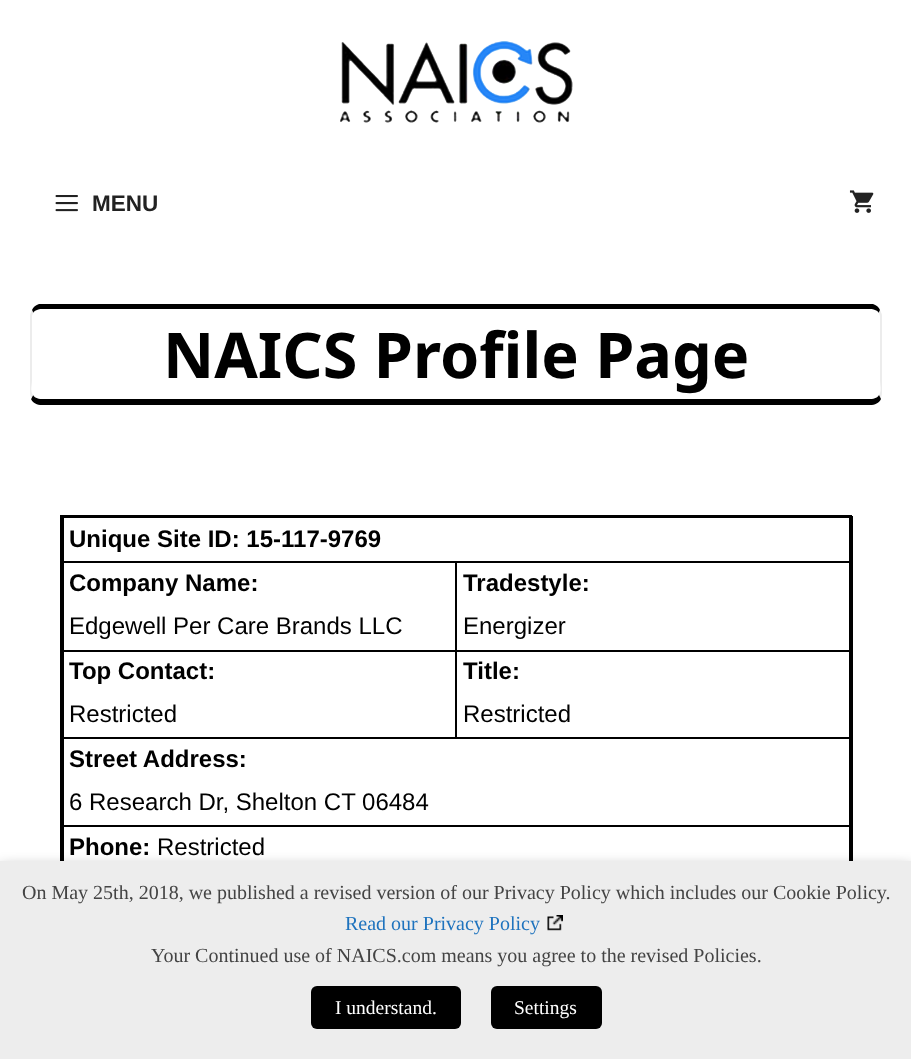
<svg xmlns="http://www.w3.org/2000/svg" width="911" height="1059">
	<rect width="100%" height="100%" fill="#FFFFFF" />
	<image x="340" y="41" width="233" height="82" href="assets/img1.png" />
	<image x="55" y="195" width="23" height="17" href="assets/img2.png" />
	<text x="92" y="211" font-family="Liberation Sans" font-size="22.5" font-weight="700" fill="#222222">MENU</text>
	<image x="849" y="190" width="25" height="23" href="assets/img3.png" />
	<path d="M42 309C38 309 34 311 33 313L32 310C33 307 36 305 39 304H873C876 305 879 307 880 310L879 313C878 311 874 309 870 309Z" fill="#000000" />
	<path d="M882 393V316C882 314 881 312 880 310L879 313L880 316V380C880 385 882 391 879 395L881 399C881 397 882 395 882 393Z" fill="#ECECEC" />
	<path d="M42 405H870C875 405 879 403 881 399L879 395C878 397 875 399 870 399H42C37 399 34 397 33 395L31 399C33 403 37 405 42 405Z" fill="#000000" />
	<path d="M30 316V393C30 395 31 397 31 399L33 395C30 391 32 385 32 380V316L33 313L32 310C31 312 30 314 30 316Z" fill="#ECECEC" />
	<text x="163" y="378" font-family="Noto Sans" font-size="63" font-weight="700" fill="#000000">NAICS Profile Page</text>
	<rect x="455" y="561" width="397" height="2" fill="#000000" />
	<rect x="455" y="650" width="397" height="2" fill="#000000" />
	<rect x="62" y="737" width="790" height="2" fill="#000000" />
	<rect x="455" y="650" width="2" height="88" fill="#000000" />
	<rect x="62" y="650" width="394" height="2" fill="#000000" />
	<rect x="455" y="561" width="2" height="90" fill="#000000" />
	<rect x="62" y="561" width="394" height="2" fill="#000000" />
	<rect x="62" y="825" width="790" height="2" fill="#000000" />
	<rect x="63" y="825" width="1" height="36" fill="#000000" />
	<rect x="63" y="737" width="1" height="90" fill="#000000" />
	<rect x="63" y="650" width="1" height="88" fill="#000000" />
	<rect x="63" y="516" width="1" height="135" fill="#000000" />
	<rect x="60" y="515" width="792" height="3" fill="#000000" />
	<rect x="849" y="515" width="3" height="346" fill="#000000" />
	<rect x="60" y="515" width="3" height="346" fill="#000000" />
	<g font-family="Liberation Sans" font-size="24" font-weight="700" fill="#000000">
		<text x="69" y="547">Unique Site ID: 15-117-9769</text>
		<text x="69" y="591">Company Name:</text>
	</g>
	<text x="69" y="634" font-family="Liberation Sans" font-size="24" fill="#000000">Edgewell Per Care Brands LLC</text>
	<text x="463" y="591" font-family="Liberation Sans" font-size="24" font-weight="700" fill="#000000">Tradestyle:</text>
	<text x="463" y="634" font-family="Liberation Sans" font-size="24" fill="#000000">Energizer</text>
	<text x="69" y="679" font-family="Liberation Sans" font-size="24" font-weight="700" fill="#000000">Top Contact:</text>
	<text x="69" y="722" font-family="Liberation Sans" font-size="24" fill="#000000">Restricted</text>
	<text x="463" y="679" font-family="Liberation Sans" font-size="24" font-weight="700" fill="#000000">Title:</text>
	<text x="463" y="722" font-family="Liberation Sans" font-size="24" fill="#000000">Restricted</text>
	<text x="69" y="767" font-family="Liberation Sans" font-size="24" font-weight="700" fill="#000000">Street Address:</text>
	<text x="69" y="810" font-family="Liberation Sans" font-size="24" fill="#000000">6 Research Dr, Shelton CT 06484</text>
	<rect x="852" y="516" width="1" height="345" fill="#000000" />
	<text x="69" y="855" font-family="Liberation Sans" font-size="24" font-weight="700" fill="#000000">Phone:</text>
	<text x="157" y="855" font-family="Liberation Sans" font-size="24" fill="#000000">Restricted</text>
	<rect x="0" y="869" width="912" height="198" fill="#000000" fill-opacity="0.5" filter="blur(7.5px)" />
	<rect x="0" y="861" width="911" height="198" fill="#EDEDED" />
	<text x="22" y="899" font-family="Liberation Serif" font-size="20" fill="#444444">On May 25th, 2018, we published a revised version of our Privacy Policy which includes our Cookie Policy.</text>
	<text x="345" y="930" font-family="Liberation Serif" font-size="20" fill="#1E73BE">Read our Privacy Policy</text>
	<image x="547" y="915" width="16" height="16" href="assets/img4.png" />
	<text x="151" y="962" font-family="Liberation Serif" font-size="20" fill="#444444">Your Continued use of NAICS.com means you agree to the revised Policies.</text>
	<rect x="311" y="986" width="150" height="43" rx="6" fill="#000000" />
	<text x="335" y="1014" font-family="Liberation Serif" font-size="19.5" fill="#FFFFFF">I understand.</text>
	<rect x="491" y="986" width="111" height="43" rx="6" fill="#000000" />
	<text x="514" y="1014" font-family="Liberation Serif" font-size="19.5" fill="#FFFFFF">Settings</text>
</svg>
